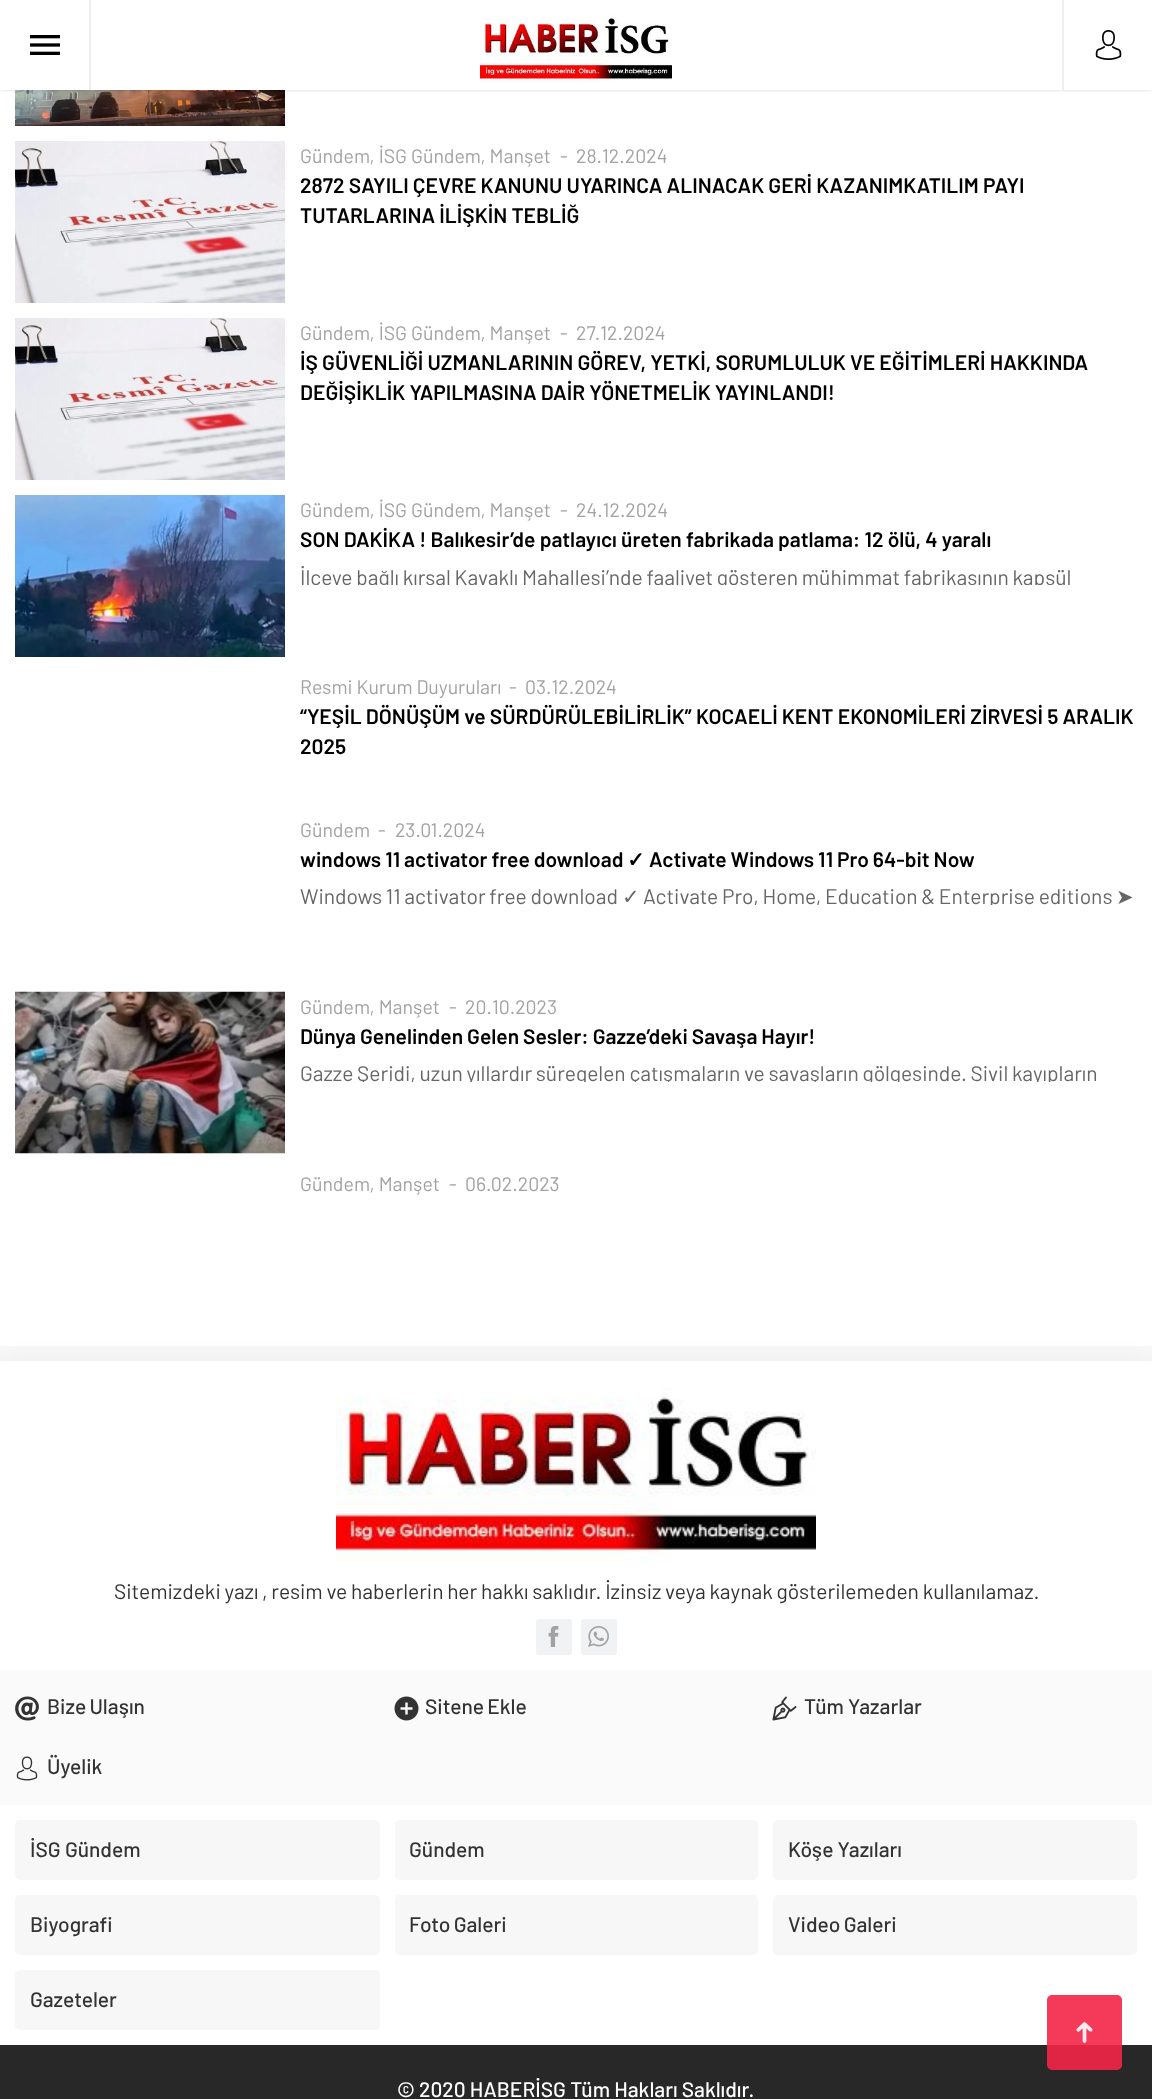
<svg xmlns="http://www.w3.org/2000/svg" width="1152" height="2099">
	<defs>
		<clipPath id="clip1"><rect x="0" y="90" width="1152" height="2" /></clipPath>
		<clipPath id="clip2"><rect x="300" y="495" width="837" height="90" /></clipPath>
		<clipPath id="clip3"><rect x="300" y="815" width="837" height="90" /></clipPath>
		<clipPath id="clip4"><rect x="300" y="992" width="837" height="90" /></clipPath>
	</defs>
	<rect width="100%" height="100%" fill="#F8F8F8" />
	<rect x="0" y="0" width="1152" height="1346" fill="#FFFFFF" />
	<image x="15" y="90" width="270" height="36" href="assets/img4.png" />
	<g clip-path="url(#clip1)">
		<rect x="0" y="0" width="1152" height="90" fill="#000000" fill-opacity="0.15" filter="blur(2px)" />
	</g>
	<image x="480" y="14" width="192" height="70" href="assets/img1.png" />
	<rect x="89" y="0" width="2" height="90" fill="#EEEEEE" />
	<image x="30" y="35" width="30" height="20" href="assets/img2.png" />
	<rect x="1062" y="0" width="2" height="90" fill="#EEEEEE" />
	<image x="1095" y="30" width="27" height="30" href="assets/img3.png" />
	<image x="15" y="141" width="270" height="162" href="assets/img5.png" />
	<g font-family="Barlow" font-size="19.5" fill="#A2A2A2">
		<text x="300" y="163">Gündem, İSG Gündem, Manşet</text>
		<text x="560" y="163">-</text>
		<text x="576" y="163">28.12.2024</text>
	</g>
	<g font-family="Barlow" font-size="21" font-weight="600" fill="#000000">
		<text x="300" y="193">2872 SAYILI ÇEVRE KANUNU UYARINCA ALINACAK GERİ KAZANIMKATILIM PAYI</text>
		<text x="300" y="223">TUTARLARINA İLİŞKİN TEBLİĞ</text>
	</g>
	<image x="15" y="318" width="270" height="162" href="assets/img5.png" />
	<g font-family="Barlow" font-size="19.5" fill="#A2A2A2">
		<text x="300" y="340">Gündem, İSG Gündem, Manşet</text>
		<text x="560" y="340">-</text>
		<text x="576" y="340">27.12.2024</text>
	</g>
	<g font-family="Barlow" font-size="21" font-weight="600" fill="#000000">
		<text x="300" y="370">İŞ GÜVENLİĞİ UZMANLARININ GÖREV, YETKİ, SORUMLULUK VE EĞİTİMLERİ HAKKINDA</text>
		<text x="300" y="400">DEĞİŞİKLİK YAPILMASINA DAİR YÖNETMELİK YAYINLANDI!</text>
	</g>
	<image x="15" y="495" width="270" height="162" href="assets/img6.png" />
	<g font-family="Barlow" font-size="19.5" fill="#A2A2A2">
		<text x="300" y="517">Gündem, İSG Gündem, Manşet</text>
		<text x="560" y="517">-</text>
		<text x="576" y="517">24.12.2024</text>
	</g>
	<text x="300" y="547" font-family="Barlow" font-size="21" font-weight="600" fill="#000000">SON DAKİKA ! Balıkesir’de patlayıcı üreten fabrikada patlama: 12 ölü, 4 yaralı</text>
	<g clip-path="url(#clip2)">
		<text x="300" y="585" word-spacing="-0.5" font-family="Barlow" font-size="21" fill="#666666">İlçeye bağlı kırsal Kavaklı Mahallesi’nde faaliyet gösteren mühimmat fabrikasının kapsül</text>
	</g>
	<g font-family="Barlow" font-size="19.5" fill="#A2A2A2">
		<text x="300" y="694">Resmi Kurum Duyuruları</text>
		<text x="509" y="694">-</text>
		<text x="525" y="694">03.12.2024</text>
	</g>
	<g font-family="Barlow" font-size="21" font-weight="600" fill="#000000">
		<text x="300" y="724">“YEŞİL DÖNÜŞÜM ve SÜRDÜRÜLEBİLİRLİK” KOCAELİ KENT EKONOMİLERİ ZİRVESİ 5 ARALIK</text>
		<text x="300" y="754">2025</text>
	</g>
	<g font-family="Barlow" font-size="19.5" fill="#A2A2A2">
		<text x="300" y="837">Gündem</text>
		<text x="378" y="837">-</text>
		<text x="395" y="837">23.01.2024</text>
	</g>
	<text x="300" y="867" word-spacing="-0.25" font-family="Barlow" font-size="21" font-weight="600" fill="#000000">windows 11 activator free download</text>
	<text x="627" y="867" font-family="DejaVu Sans" font-size="21" font-weight="700" fill="#000000">✓</text>
	<text x="649" y="867" word-spacing="-0.25" font-family="Barlow" font-size="21" font-weight="600" fill="#000000">Activate Windows 11 Pro 64-bit Now</text>
	<text x="300" y="904" word-spacing="-0.5" font-family="Barlow" font-size="21" fill="#666666">Windows 11 activator free download</text>
	<text x="622" y="904" font-family="DejaVu Sans" font-size="21" fill="#666666">✓</text>
	<g clip-path="url(#clip3)">
		<text x="643" y="904" word-spacing="-0.5" font-family="Barlow" font-size="21" fill="#666666">Activate Pro, Home, Education &amp; Enterprise editions</text>
	</g>
	<text x="1116" y="904" font-family="DejaVu Sans" font-size="21" fill="#666666">➤</text>
	<image x="15" y="991" width="270" height="163" href="assets/img7.png" />
	<g font-family="Barlow" font-size="19.5" fill="#A2A2A2">
		<text x="300" y="1014">Gündem, Manşet</text>
		<text x="449" y="1014">-</text>
		<text x="465" y="1014">20.10.2023</text>
	</g>
	<text x="300" y="1044" word-spacing="-0.25" font-family="Barlow" font-size="21" font-weight="600" fill="#000000">Dünya Genelinden Gelen Sesler: Gazze’deki Savaşa Hayır!</text>
	<g clip-path="url(#clip4)">
		<text x="300" y="1081" word-spacing="-0.5" font-family="Barlow" font-size="21" fill="#666666">Gazze Şeridi, uzun yıllardır süregelen çatışmaların ve savaşların gölgesinde. Sivil kayıpların</text>
	</g>
	<g font-family="Barlow" font-size="19.5" fill="#A2A2A2">
		<text x="300" y="1191">Gündem, Manşet</text>
		<text x="449" y="1191">-</text>
		<text x="465" y="1191">06.02.2023</text>
	</g>
	<rect x="0" y="1361" width="1152" height="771" fill="#000000" fill-opacity="0.05" filter="blur(11px)" />
	<rect x="0" y="1361" width="1152" height="684" fill="#FFFFFF" />
	<image x="336" y="1388" width="480" height="175" href="assets/img8.png" />
	<text x="114" y="1599" word-spacing="-0.5" font-family="Barlow" font-size="21" fill="#333333">Sitemizdeki yazı , resim ve haberlerin her hakkı saklıdır. İzinsiz veya kaynak gösterilemeden kullanılamaz.</text>
	<rect x="536" y="1619" width="36" height="36" rx="3" fill="#F1F2F3" />
	<image x="548" y="1626" width="11" height="21" href="assets/img9.png" />
	<rect x="581" y="1619" width="36" height="36" rx="3" fill="#F1F2F3" />
	<image x="588" y="1626" width="21" height="21" href="assets/img10.png" />
	<rect x="0" y="1670" width="1152" height="135" fill="#FAFAFA" />
	<image x="15" y="1696" width="24" height="25" href="assets/img11.png" />
	<text x="47" y="1714" word-spacing="-1" font-family="Barlow" font-size="21" font-weight="500" fill="#333333">Bize Ulaşın</text>
	<image x="394" y="1696" width="25" height="25" href="assets/img12.png" />
	<text x="425" y="1714" word-spacing="-1" font-family="Barlow" font-size="21" font-weight="500" fill="#333333">Sitene Ekle</text>
	<image x="772" y="1696" width="25" height="25" href="assets/img13.png" />
	<text x="804" y="1714" font-family="Barlow" font-size="21" font-weight="500" fill="#333333">Tüm Yazarlar</text>
	<image x="16" y="1756" width="22" height="25" href="assets/img14.png" />
	<text x="47" y="1774" font-family="Barlow" font-size="21" font-weight="500" fill="#333333">Üyelik</text>
	<rect x="15" y="1820" width="365" height="60" rx="5" fill="#F7F7F7" />
	<text x="30" y="1857" font-family="Barlow" font-size="21" font-weight="500" fill="#333333">İSG Gündem</text>
	<rect x="395" y="1820" width="363" height="60" rx="5" fill="#F7F7F7" />
	<text x="409" y="1857" font-family="Barlow" font-size="21" font-weight="500" fill="#333333">Gündem</text>
	<rect x="773" y="1820" width="364" height="60" rx="5" fill="#F7F7F7" />
	<text x="788" y="1857" font-family="Barlow" font-size="21" font-weight="500" fill="#333333">Köşe Yazıları</text>
	<rect x="15" y="1895" width="365" height="60" rx="5" fill="#F7F7F7" />
	<text x="30" y="1932" font-family="Barlow" font-size="21" font-weight="500" fill="#333333">Biyografi</text>
	<rect x="395" y="1895" width="363" height="60" rx="5" fill="#F7F7F7" />
	<text x="409" y="1932" word-spacing="-1" font-family="Barlow" font-size="21" font-weight="500" fill="#333333">Foto Galeri</text>
	<rect x="773" y="1895" width="364" height="60" rx="5" fill="#F7F7F7" />
	<text x="788" y="1932" word-spacing="-1" font-family="Barlow" font-size="21" font-weight="500" fill="#333333">Video Galeri</text>
	<rect x="15" y="1970" width="365" height="60" rx="5" fill="#F7F7F7" />
	<text x="30" y="2007" font-family="Barlow" font-size="21" font-weight="500" fill="#333333">Gazeteler</text>
	<rect x="0" y="2045" width="1152" height="54" fill="#282828" />
	<text x="397" y="2097" font-family="Barlow" font-size="21" font-weight="500" fill="#FFFFFF">© 2020 HABERİSG Tüm Hakları Saklıdır.</text>
	<rect x="1047" y="1995" width="75" height="75" rx="5" fill="#F42447" fill-opacity="0.9" />
	<image x="1076" y="2022" width="17" height="21" href="assets/img15.png" />
</svg>
